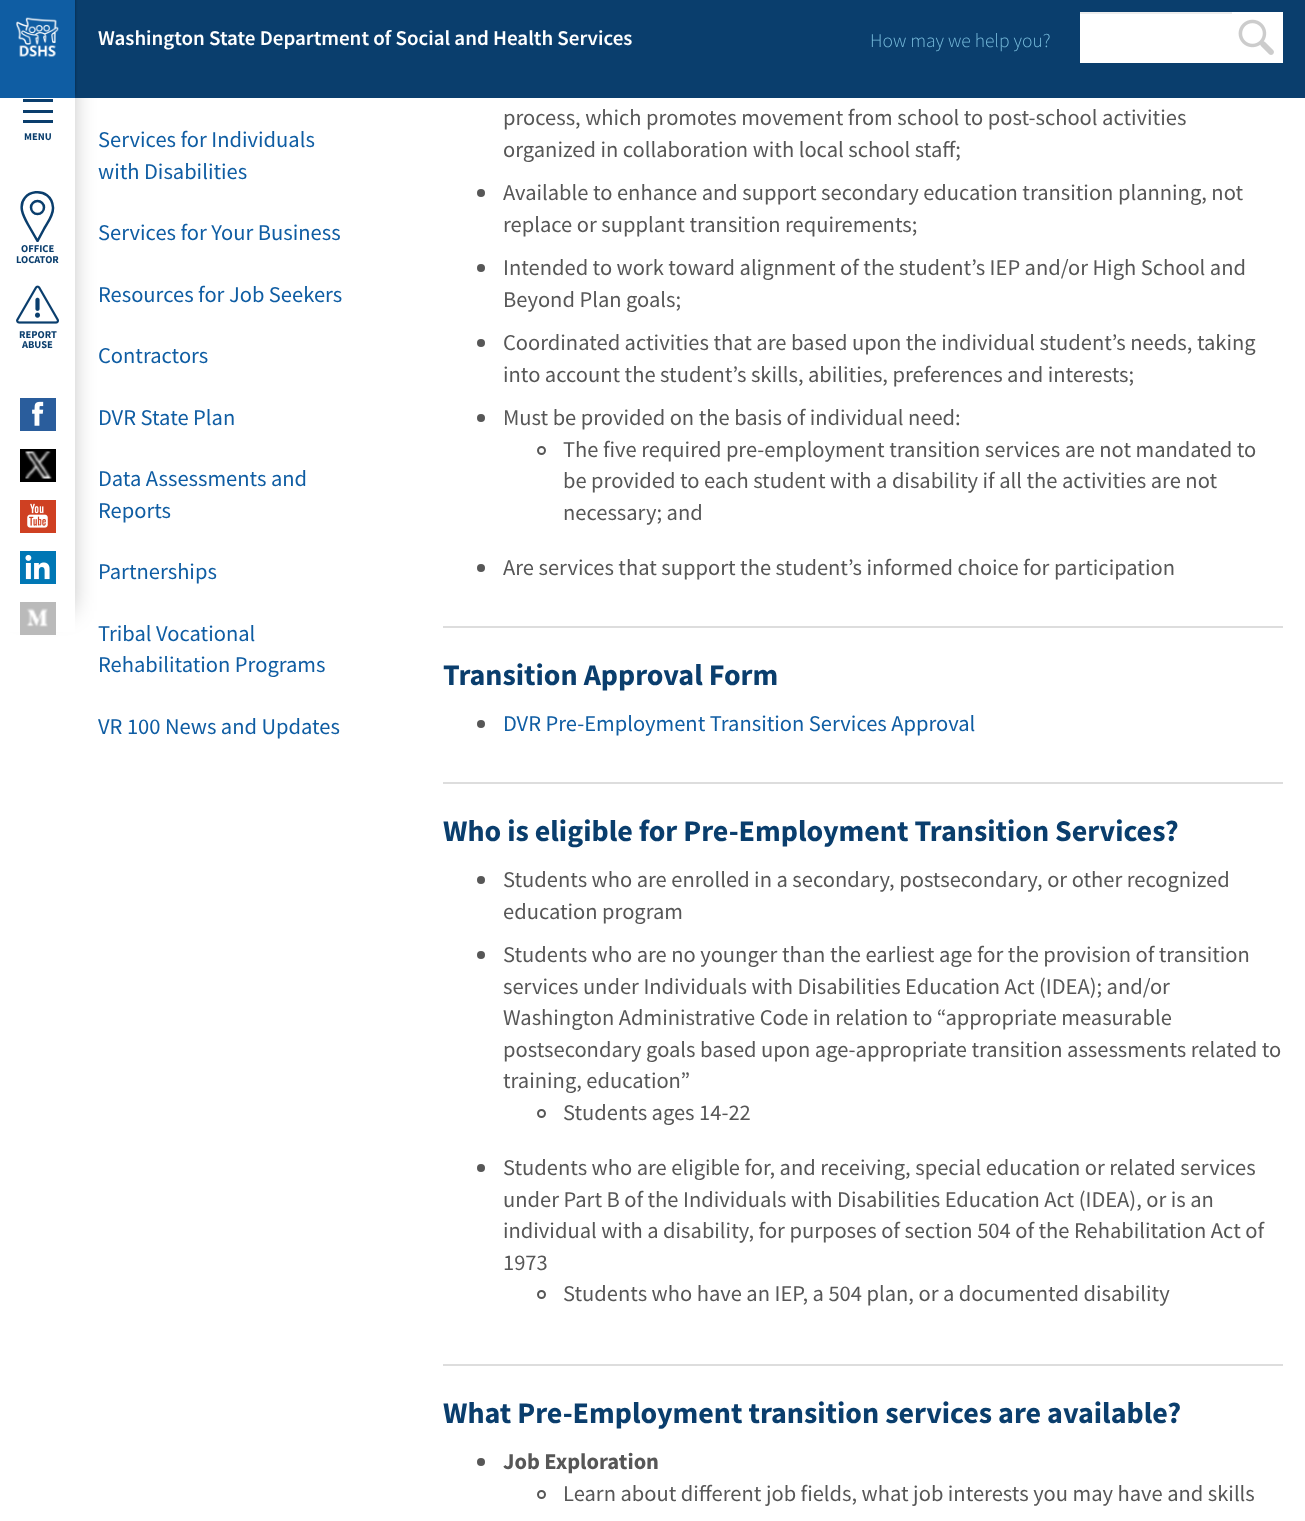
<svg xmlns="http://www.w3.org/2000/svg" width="1305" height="1521">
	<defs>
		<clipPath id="clip1"><rect x="15" y="189" width="45" height="53" /></clipPath>
	</defs>
	<rect width="100%" height="100%" fill="#FFFFFF" />
	<rect x="18" y="56" width="53" height="555" fill="#000000" fill-opacity="0.3" filter="blur(11.5px)" />
	<rect x="75" y="0" width="1230" height="98" fill="#0A3E6D" />
	<rect x="0" y="98" width="75" height="534" fill="#FFFFFF" />
	<rect x="23" y="99" width="30" height="3" fill="#0A3E6D" />
	<rect x="0" y="-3" width="75" height="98" fill="#000000" fill-opacity="0.4" filter="blur(1.5px)" />
	<rect x="0" y="0" width="75" height="98" fill="#0F5DA3" />
	<image x="16" y="17" width="43" height="40" href="assets/img1.png" />
	<text x="98" y="45" font-family="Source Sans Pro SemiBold" font-size="21" font-weight="600" fill="#FFFFFF">Washington State Department of Social and Health Services</text>
	<text x="870" y="47" font-family="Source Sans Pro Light" font-size="19.5" font-weight="300" fill="#77BBDB">How may we help you?</text>
	<rect x="1080" y="12" width="203" height="51" fill="#FFFFFF" />
	<rect x="1080" y="12" width="152" height="2" fill="#ECECEC" />
	<image x="1238" y="19" width="36" height="36" href="assets/img2.png" />
	<rect x="23" y="110" width="30" height="3" fill="#0A3E6D" />
	<rect x="23" y="120" width="30" height="3" fill="#0A3E6D" />
	<text x="24" y="140" font-family="Source Sans Pro" font-size="10.5" font-weight="700" fill="#0A3E6D">MENU</text>
	<g clip-path="url(#clip1)">
		<path d="M37.5 241L28 224.5C25.5 220 23 215.5 22 210.5C18 189 51.5 184.5 53 207.5C53.5 215 48 222 44.5 228Z" fill="none" stroke="#0A3E6D" stroke-width="2.5" />
	</g>
	<circle cx="37.5" cy="207.5" r="6.5" fill="none" stroke="#0A3E6D" stroke-width="2.5" />
	<g font-family="Source Sans Pro" font-size="10.5" font-weight="700" fill="#0A3E6D">
		<text x="21" y="252">OFFICE</text>
		<text x="16" y="263">LOCATOR</text>
	</g>
	<image x="16" y="285" width="43" height="39" href="assets/img3.png" />
	<g font-family="Source Sans Pro" font-size="10.5" font-weight="700" fill="#0A3E6D">
		<text x="19" y="338">REPORT</text>
		<text x="22" y="348">ABUSE</text>
	</g>
	<rect x="20" y="398" width="36" height="33" fill="#2A5D9C" />
	<image x="32" y="401" width="12" height="25" href="assets/img4.png" />
	<rect x="20" y="449" width="36" height="33" fill="#000000" />
	<image x="25" y="451" width="27" height="28" href="assets/img5.png" />
	<rect x="20" y="500" width="36" height="33" fill="#CF4022" />
	<image x="27" y="503" width="21" height="25" href="assets/img6.png" />
	<rect x="20" y="551" width="36" height="33" fill="#0077B5" />
	<image x="25" y="554" width="25" height="26" href="assets/img7.png" />
	<rect x="20" y="602" width="36" height="33" fill="#BABABA" />
	<image x="26" y="608" width="22" height="19" href="assets/img8.png" />
	<g font-family="Source Sans Pro" font-size="22.5" fill="#0F5DA3">
		<text x="98" y="147">Services for Individuals</text>
		<text x="98" y="179">with Disabilities</text>
		<text x="98" y="240">Services for Your Business</text>
		<text x="98" y="302">Resources for Job Seekers</text>
		<text x="98" y="363">Contractors</text>
		<text x="98" y="425">DVR State Plan</text>
		<text x="98" y="486">Data Assessments and</text>
		<text x="98" y="518">Reports</text>
		<text x="98" y="579">Partnerships</text>
		<text x="98" y="641">Tribal Vocational</text>
		<text x="98" y="672">Rehabilitation Programs</text>
		<text x="98" y="734">VR 100 News and Updates</text>
	</g>
	<g font-family="Source Sans Pro" font-size="22.5" fill="#575757">
		<text x="503" y="125">process, which promotes movement from school to post-school activities</text>
		<text x="503" y="157">organized in collaboration with local school staff;</text>
	</g>
	<circle cx="481" cy="193" r="4" fill="#575757" />
	<g font-family="Source Sans Pro" font-size="22.5" fill="#575757">
		<text x="503" y="200">Available to enhance and support secondary education transition planning, not</text>
		<text x="503" y="232">replace or supplant transition requirements;</text>
	</g>
	<circle cx="481" cy="268" r="4" fill="#575757" />
	<g font-family="Source Sans Pro" font-size="22.5" fill="#575757">
		<text x="503" y="275">Intended to work toward alignment of the student’s IEP and/or High School and</text>
		<text x="503" y="307">Beyond Plan goals;</text>
	</g>
	<circle cx="481" cy="343" r="4" fill="#575757" />
	<g font-family="Source Sans Pro" font-size="22.5" fill="#575757">
		<text x="503" y="350">Coordinated activities that are based upon the individual student’s needs, taking</text>
		<text x="503" y="382">into account the student’s skills, abilities, preferences and interests;</text>
	</g>
	<circle cx="481" cy="418" r="4" fill="#575757" />
	<text x="503" y="425" font-family="Source Sans Pro" font-size="22.5" fill="#575757">Must be provided on the basis of individual need:</text>
	<circle cx="541.5" cy="450.5" r="3.5" fill="none" stroke="#575757" stroke-width="2" />
	<g font-family="Source Sans Pro" font-size="22.5" fill="#575757">
		<text x="563" y="457">The five required pre-employment transition services are not mandated to</text>
		<text x="563" y="488">be provided to each student with a disability if all the activities are not</text>
		<text x="563" y="520">necessary; and</text>
	</g>
	<circle cx="481" cy="568" r="4" fill="#575757" />
	<text x="503" y="575" font-family="Source Sans Pro" font-size="22.5" fill="#575757">Are services that support the student’s informed choice for participation</text>
	<rect x="443" y="626" width="840" height="2" fill="#DDDDDD" />
	<text x="443" y="685" font-family="Source Sans Pro" font-size="30" font-weight="700" fill="#0A3E6D">Transition Approval Form</text>
	<circle cx="481" cy="724" r="4" fill="#575757" />
	<text x="503" y="731" font-family="Source Sans Pro" font-size="22.5" fill="#0F5DA3">DVR Pre-Employment Transition Services Approval</text>
	<rect x="443" y="782" width="840" height="2" fill="#DDDDDD" />
	<text x="443" y="841" font-family="Source Sans Pro" font-size="30" font-weight="700" fill="#0A3E6D">Who is eligible for Pre-Employment Transition Services?</text>
	<circle cx="481" cy="880" r="4" fill="#575757" />
	<g font-family="Source Sans Pro" font-size="22.5" fill="#575757">
		<text x="503" y="887">Students who are enrolled in a secondary, postsecondary, or other recognized</text>
		<text x="503" y="919">education program</text>
	</g>
	<circle cx="481" cy="955" r="4" fill="#575757" />
	<g font-family="Source Sans Pro" font-size="22.5" fill="#575757">
		<text x="503" y="962">Students who are no younger than the earliest age for the provision of transition</text>
		<text x="503" y="994">services under Individuals with Disabilities Education Act (IDEA); and/or</text>
		<text x="503" y="1025">Washington Administrative Code in relation to “appropriate measurable</text>
		<text x="503" y="1057">postsecondary goals based upon age-appropriate transition assessments related to</text>
		<text x="503" y="1088">training, education”</text>
	</g>
	<circle cx="541.5" cy="1113.5" r="3.5" fill="none" stroke="#575757" stroke-width="2" />
	<text x="563" y="1120" font-family="Source Sans Pro" font-size="22.5" fill="#575757">Students ages 14-22</text>
	<circle cx="481" cy="1168" r="4" fill="#575757" />
	<g font-family="Source Sans Pro" font-size="22.5" fill="#575757">
		<text x="503" y="1175">Students who are eligible for, and receiving, special education or related services</text>
		<text x="503" y="1207">under Part B of the Individuals with Disabilities Education Act (IDEA), or is an</text>
		<text x="503" y="1238">individual with a disability, for purposes of section 504 of the Rehabilitation Act of</text>
		<text x="503" y="1270">1973</text>
	</g>
	<circle cx="541.5" cy="1294.5" r="3.5" fill="none" stroke="#575757" stroke-width="2" />
	<text x="563" y="1301" font-family="Source Sans Pro" font-size="22.5" fill="#575757">Students who have an IEP, a 504 plan, or a documented disability</text>
	<rect x="443" y="1364" width="840" height="2" fill="#DDDDDD" />
	<text x="443" y="1423" font-family="Source Sans Pro" font-size="30" font-weight="700" fill="#0A3E6D">What Pre-Employment transition services are available?</text>
	<circle cx="481" cy="1462" r="4" fill="#575757" />
	<text x="503" y="1469" font-family="Source Sans Pro" font-size="22.5" font-weight="700" fill="#575757">Job Exploration</text>
	<circle cx="541.5" cy="1494.5" r="3.5" fill="none" stroke="#575757" stroke-width="2" />
	<text x="563" y="1501" font-family="Source Sans Pro" font-size="22.5" fill="#575757">Learn about different job fields, what job interests you may have and skills</text>
</svg>
